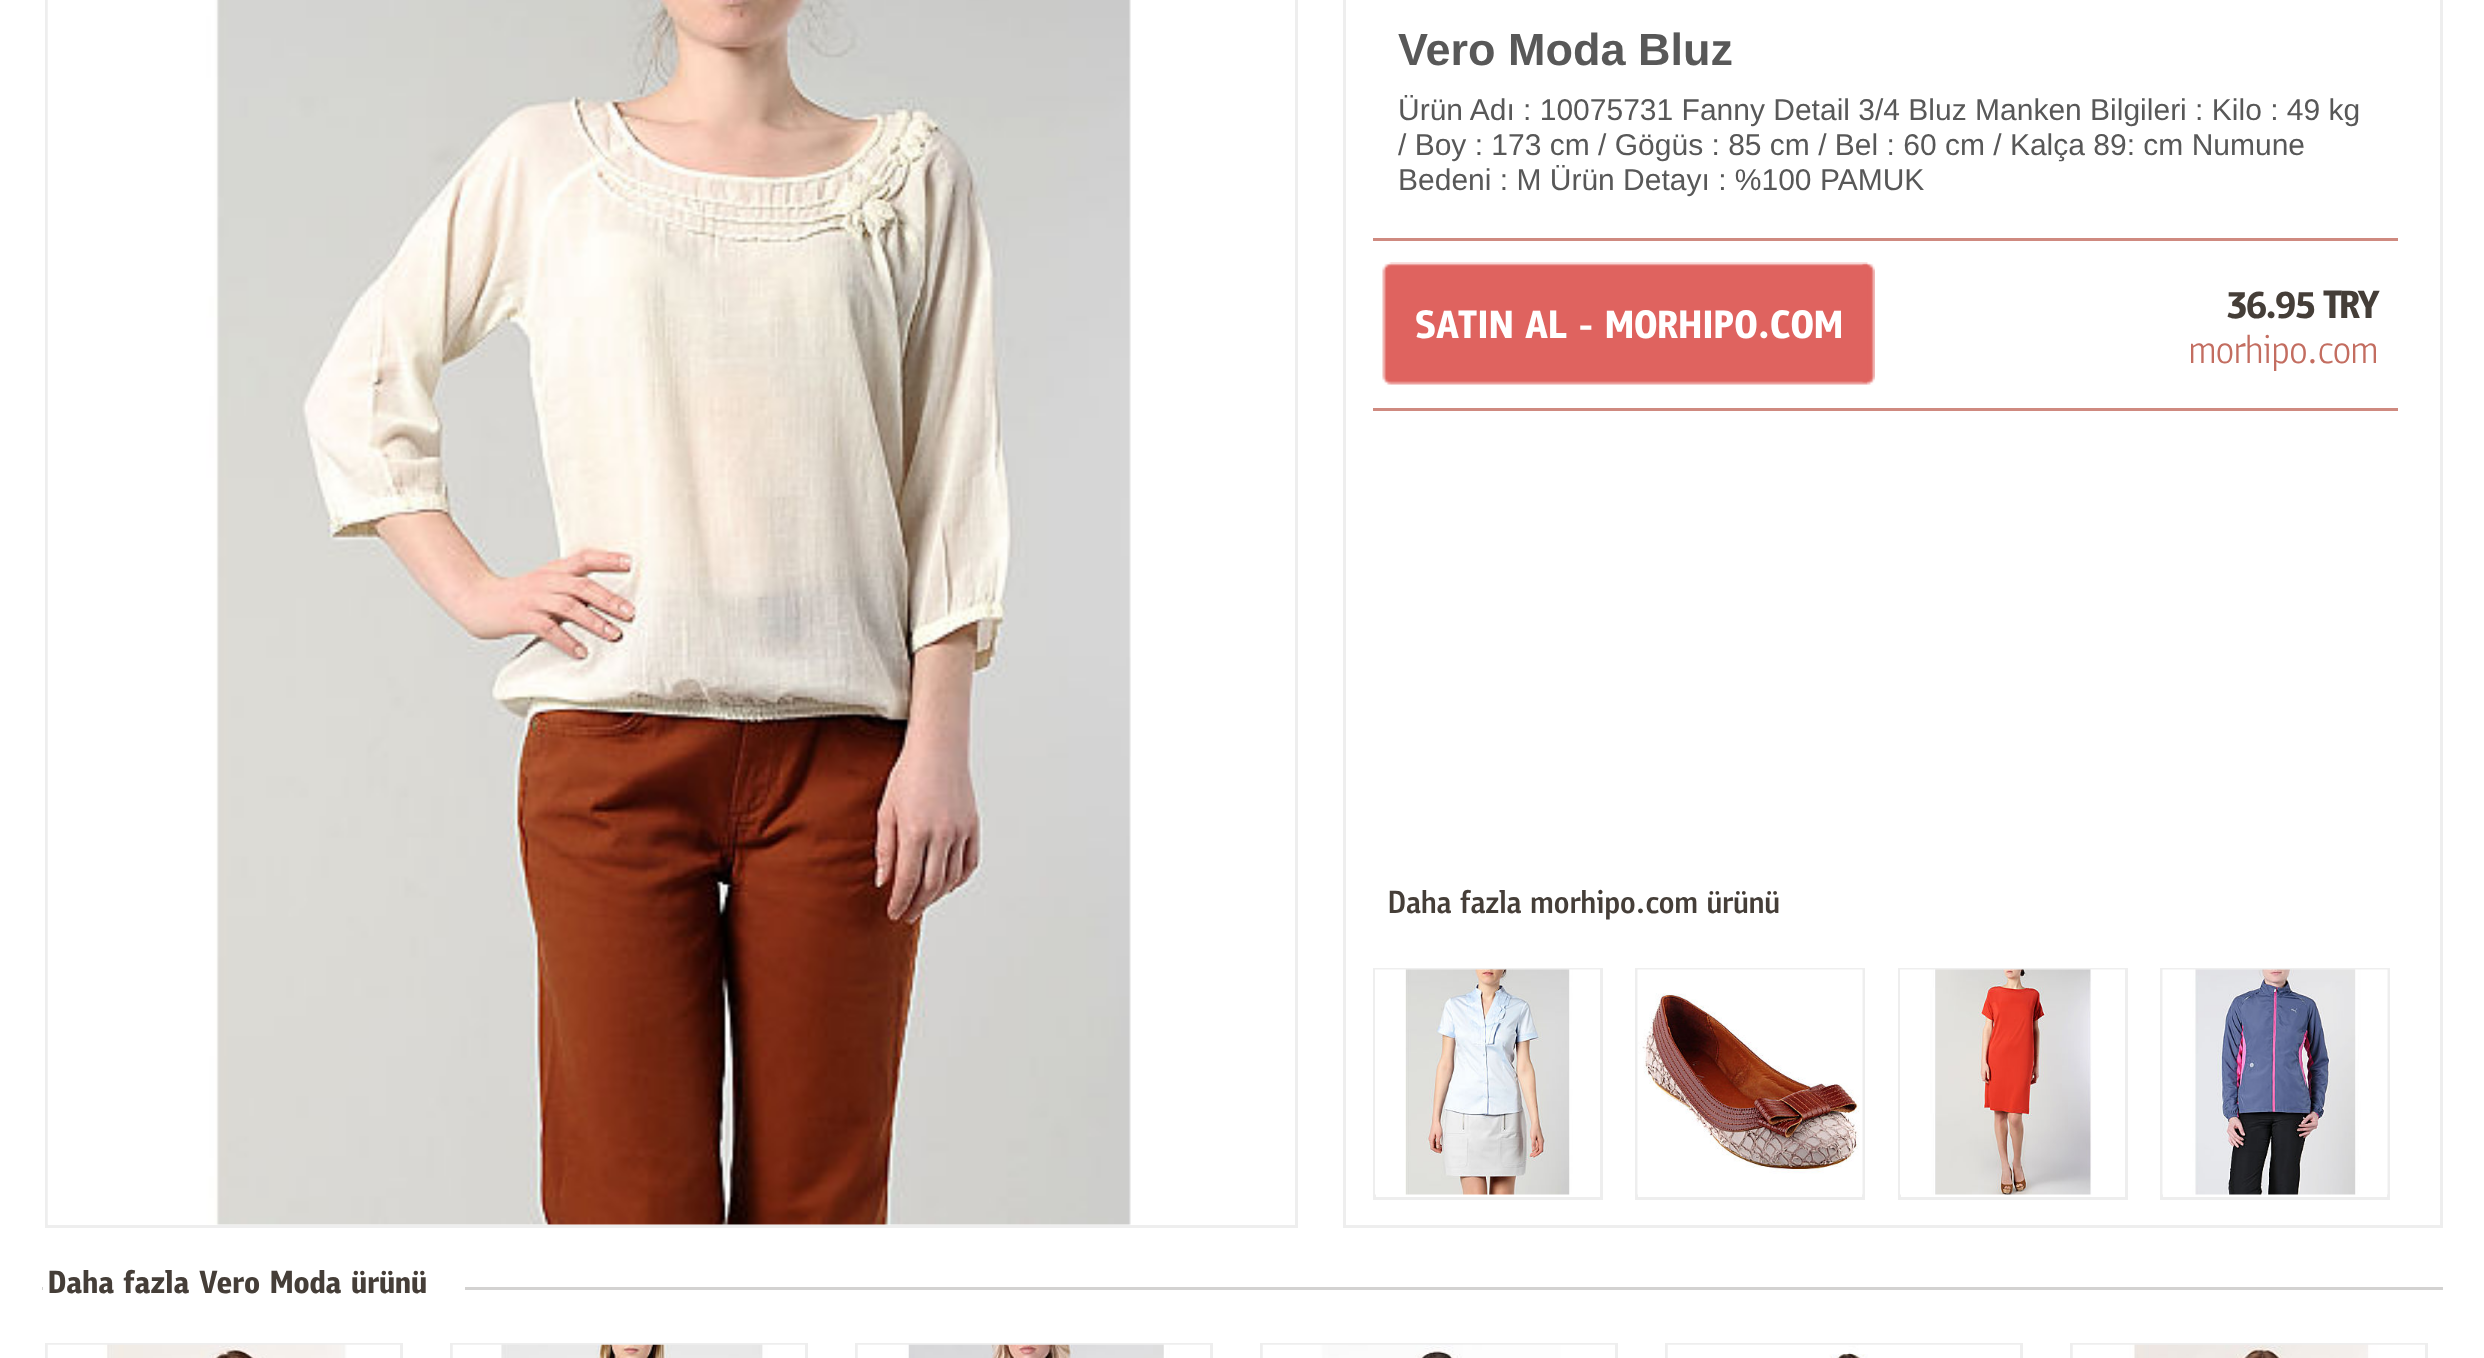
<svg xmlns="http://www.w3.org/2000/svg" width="2484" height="1358">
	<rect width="100%" height="100%" fill="#FFFFFF" />
	<rect x="46.5" y="-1.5" width="1250" height="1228" fill="none" stroke="#EEEEEE" stroke-width="3" />
	<image x="47" y="0" width="1084" height="1225" href="assets/img1.png" />
	<rect x="1344.5" y="-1.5" width="1097" height="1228" fill="none" stroke="#EEEEEE" stroke-width="3" />
	<text x="1398" y="65" font-family="Liberation Sans" font-size="45" font-weight="700" fill="#585858">Vero Moda Bluz</text>
	<g font-family="Liberation Sans" font-size="30" fill="#585858">
		<text x="1398" y="120">Ürün Adı : 10075731 Fanny Detail 3/4 Bluz Manken Bilgileri : Kilo : 49 kg</text>
		<text x="1398" y="155">/ Boy : 173 cm / Gögüs : 85 cm / Bel : 60 cm / Kalça 89: cm Numune</text>
		<text x="1398" y="190">Bedeni : M Ürün Detayı : %100 PAMUK</text>
	</g>
	<rect x="1373" y="238" width="1025" height="3" fill="#CF8A80" />
	<rect x="1373" y="408" width="1025" height="3" fill="#CF8A80" />
	<image x="1861" y="263" width="14" height="122" href="assets/img2.png" />
	<image x="1382" y="262" width="486" height="123" href="assets/img3.png" />
	<text x="1415" y="338" font-family="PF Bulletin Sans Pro" font-size="40" font-weight="700" fill="#FFFFFF">SATIN AL - MORHIPO.COM</text>
	<text x="2226" y="318" font-family="PF Bulletin Sans Pro" font-size="40" font-weight="700" letter-spacing="-2.5" fill="#453E38">36.95 TRY</text>
	<text x="2189" y="363" font-family="PF Bulletin Sans Pro" font-size="40" font-weight="300" fill="#C36D60">morhipo.com</text>
	<text x="1388" y="913" font-family="PF Bulletin Sans Pro" font-size="32.5" font-weight="500" fill="#453E38">Daha fazla morhipo.com ürünü</text>
	<rect x="1374.5" y="969.5" width="227" height="229" fill="none" stroke="#EEEEEE" stroke-width="3" />
	<image x="1375" y="969" width="225" height="226" href="assets/img4.png" />
	<rect x="1636.5" y="969.5" width="227" height="229" fill="none" stroke="#EEEEEE" stroke-width="3" />
	<image x="1637" y="969" width="226" height="226" href="assets/img5.png" />
	<rect x="1899.5" y="969.5" width="227" height="229" fill="none" stroke="#EEEEEE" stroke-width="3" />
	<image x="1900" y="969" width="225" height="226" href="assets/img6.png" />
	<rect x="2161.5" y="969.5" width="227" height="229" fill="none" stroke="#EEEEEE" stroke-width="3" />
	<image x="2162" y="969" width="226" height="226" href="assets/img7.png" />
	<rect x="42" y="1287" width="2401" height="3" fill="#D3D2D1" />
	<rect x="43" y="1287" width="422" height="3" fill="#FFFFFF" />
	<text x="48" y="1293" font-family="PF Bulletin Sans Pro" font-size="32.5" font-weight="700" fill="#453E38">Daha fazla Vero Moda ürünü</text>
	<rect x="46.5" y="1344.5" width="355" height="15" fill="none" stroke="#EEEEEE" stroke-width="3" />
	<image x="47" y="1344" width="353" height="14" href="assets/img8.png" />
	<rect x="451.5" y="1344.5" width="355" height="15" fill="none" stroke="#EEEEEE" stroke-width="3" />
	<image x="452" y="1344" width="353" height="14" href="assets/img9.png" />
	<rect x="856.5" y="1344.5" width="355" height="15" fill="none" stroke="#EEEEEE" stroke-width="3" />
	<image x="857" y="1344" width="353" height="14" href="assets/img10.png" />
	<rect x="1261.5" y="1344.5" width="355" height="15" fill="none" stroke="#EEEEEE" stroke-width="3" />
	<image x="1262" y="1344" width="353" height="14" href="assets/img11.png" />
	<rect x="1666.5" y="1344.5" width="355" height="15" fill="none" stroke="#EEEEEE" stroke-width="3" />
	<image x="1667" y="1344" width="353" height="14" href="assets/img12.png" />
	<rect x="2071.5" y="1344.5" width="355" height="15" fill="none" stroke="#EEEEEE" stroke-width="3" />
	<image x="2072" y="1344" width="353" height="14" href="assets/img13.png" />
</svg>
